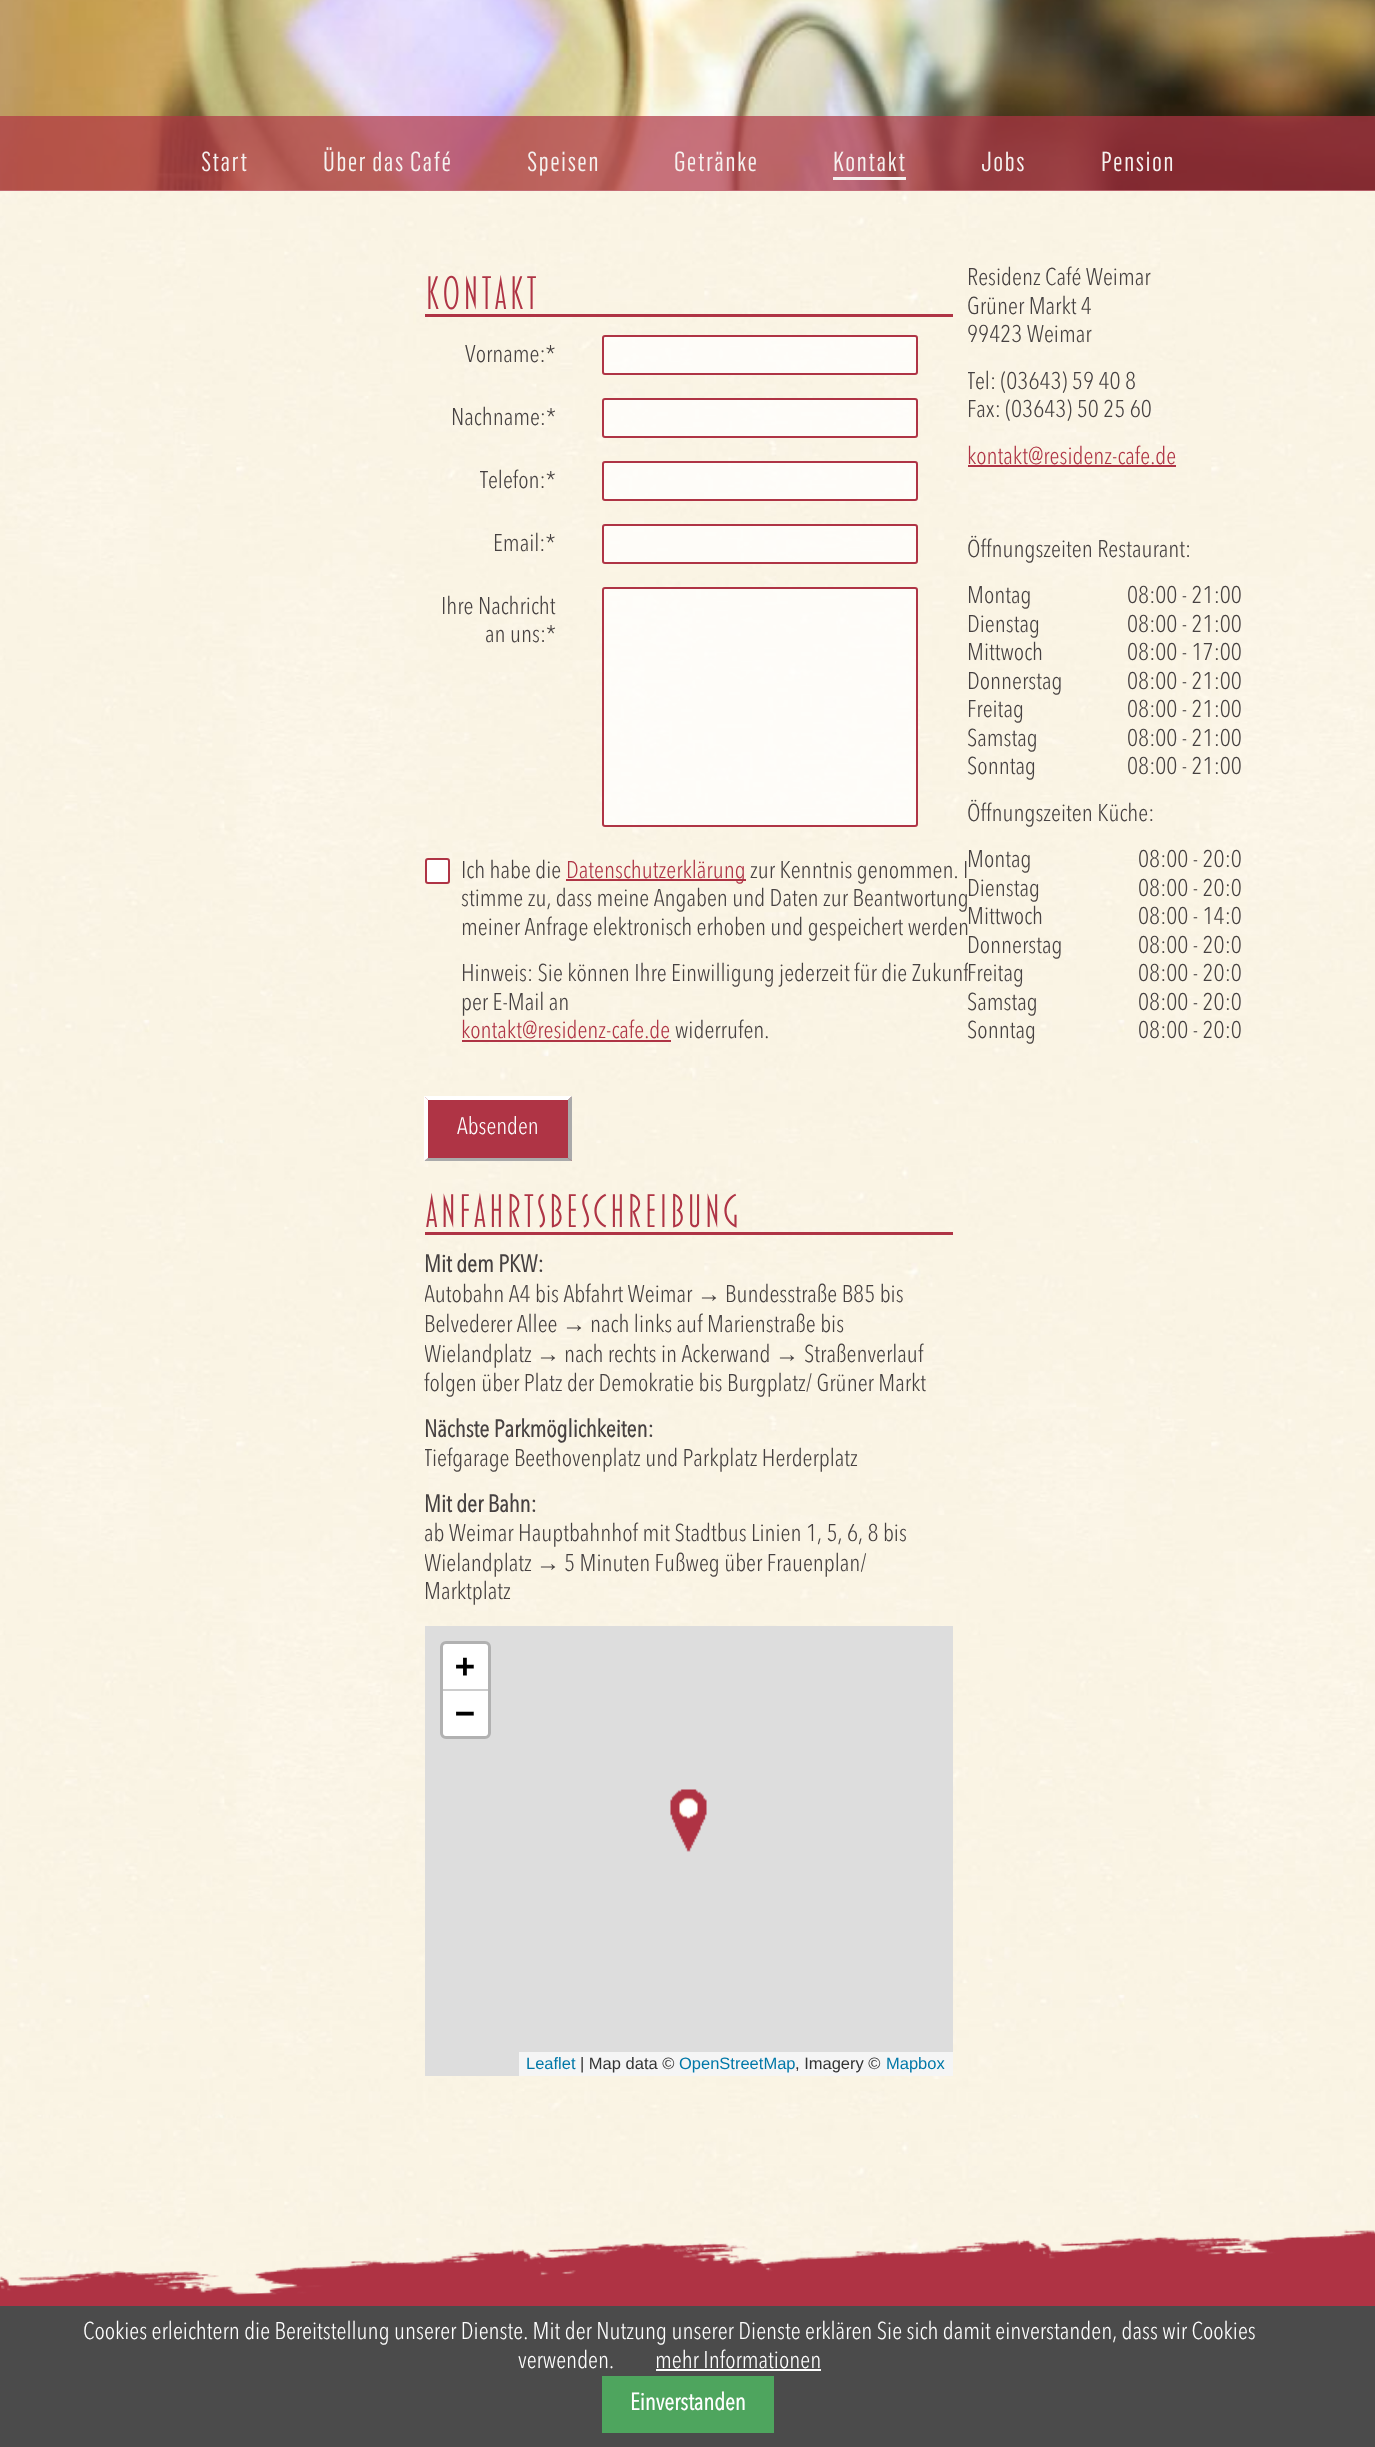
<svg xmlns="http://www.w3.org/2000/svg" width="1375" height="2447">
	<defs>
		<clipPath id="clip1"><rect x="462" y="858" width="506" height="207" /></clipPath>
		<clipPath id="clip2"><rect x="425" y="1253" width="528" height="823" /></clipPath>
		<clipPath id="clip3"><rect x="968" y="266" width="279" height="225" /></clipPath>
	</defs>
	<rect width="100%" height="100%" fill="#FFFFFF" />
	<image x="0" y="191" width="1375" height="2105" href="assets/img1.png" />
	<image x="0" y="0" width="1375" height="191" href="assets/img2.png" />
	<rect x="0" y="116" width="1375" height="75" fill="#AF3445" fill-opacity="0.7" />
	<g font-family="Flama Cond" font-size="27" letter-spacing="1.4" fill="#F6F2F0">
		<text x="201" y="171">Start</text>
		<text x="323" y="171">Über das Café</text>
		<text x="527" y="171">Speisen</text>
		<text x="674" y="171">Getränke</text>
		<text x="833" y="171">Kontakt</text>
	</g>
	<rect x="833" y="177" width="73" height="3" fill="#F6F2F0" />
	<g font-family="Flama Cond" font-size="27" letter-spacing="1.4" fill="#F6F2F0">
		<text x="981" y="171">Jobs</text>
		<text x="1101" y="171">Pension</text>
	</g>
	<rect x="425" y="314" width="528" height="3" fill="#AF3445" />
	<text x="424" y="309" font-family="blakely" font-size="48" fill="#AF3445">KONTAKT</text>
	<text x="465" y="362" font-family="avenir" font-size="24" fill="#464141">Vorname:*</text>
	<rect x="603" y="336" width="314" height="38" rx="2" fill="#FFFFFF" fill-opacity="0.75" stroke="#AF3445" stroke-width="2" />
	<text x="451" y="425" font-family="avenir" font-size="24" fill="#464141">Nachname:*</text>
	<rect x="603" y="399" width="314" height="38" rx="2" fill="#FFFFFF" fill-opacity="0.75" stroke="#AF3445" stroke-width="2" />
	<text x="480" y="488" font-family="avenir" font-size="24" fill="#464141">Telefon:*</text>
	<rect x="603" y="462" width="314" height="38" rx="2" fill="#FFFFFF" fill-opacity="0.75" stroke="#AF3445" stroke-width="2" />
	<text x="493" y="551" font-family="avenir" font-size="24" fill="#464141">Email:*</text>
	<rect x="603" y="525" width="314" height="38" rx="2" fill="#FFFFFF" fill-opacity="0.75" stroke="#AF3445" stroke-width="2" />
	<g font-family="avenir" font-size="24" fill="#464141">
		<text x="441" y="614">Ihre Nachricht</text>
		<text x="485" y="642">an uns:*</text>
	</g>
	<rect x="603" y="588" width="314" height="238" rx="2" fill="#FFFFFF" fill-opacity="0.75" stroke="#AF3445" stroke-width="2" />
	<rect x="426" y="859" width="23" height="24" rx="2" fill="#FFFFFF" stroke="#AF3445" stroke-width="2" />
	<text x="461" y="878" font-family="avenir" font-size="24" fill="#464141">Ich habe die</text>
	<rect x="566" y="879" width="180" height="2" fill="#AF3445" />
	<text x="566" y="878" font-family="avenir" font-size="24" fill="#AF3445">Datenschutzerklärung</text>
	<g font-family="avenir" font-size="24" fill="#464141">
		<text x="750" y="878">zur Kenntnis genommen. I</text>
		<text x="461" y="906">stimme zu, dass meine Angaben und Daten zur Beantwortung</text>
		<text x="461" y="935">meiner Anfrage elektronisch erhoben und gespeichert werden</text>
	</g>
	<g clip-path="url(#clip1)">
		<text x="461" y="981" font-family="avenir" font-size="24" fill="#464141">Hinweis: Sie können Ihre Einwilligung jederzeit für die Zukunf</text>
	</g>
	<text x="461" y="1010" font-family="avenir" font-size="24" fill="#464141">per E-Mail an</text>
	<text x="461" y="1038" font-family="avenir" font-size="24" fill="#AF3445">kontakt@residenz-cafe.de</text>
	<rect x="462" y="1040" width="209" height="2" fill="#AF3445" />
	<text x="675" y="1038" font-family="avenir" font-size="24" fill="#464141">widerrufen.</text>
	<rect x="425" y="1097" width="147" height="64" fill="#AF3445" />
	<path d="M424 1096H572L568 1100H428Z" fill="#FFFFFF" />
	<path d="M572 1096V1161L568 1158V1100Z" fill="#AAAAAA" />
	<path d="M572 1161H424L428 1158H568Z" fill="#AAAAAA" />
	<path d="M424 1161V1096L428 1100V1158Z" fill="#FFFFFF" />
	<text x="457" y="1134" font-family="avenir" font-size="23.75" fill="#FFFFFF">Absenden</text>
	<rect x="425" y="1232" width="528" height="3" fill="#AF3445" />
	<text x="424" y="1227" font-family="blakely" font-size="48" fill="#AF3445">ANFAHRTSBESCHREIBUNG</text>
	<text x="424" y="1272" font-family="avenir" font-size="24" font-weight="700" fill="#464141">Mit dem PKW:</text>
	<g clip-path="url(#clip2)">
		<text x="424" y="1302" font-family="avenir" font-size="24" fill="#464141">Autobahn A4 bis Abfahrt Weimar</text>
	</g>
	<text x="697" y="1302" font-family="Liberation Serif" font-size="24" fill="#464141">→</text>
	<g font-family="avenir" font-size="24" fill="#464141">
		<text x="725" y="1302">Bundesstraße B85 bis</text>
		<text x="424" y="1332">Belvederer Allee</text>
	</g>
	<text x="562" y="1332" font-family="Liberation Serif" font-size="24" fill="#464141">→</text>
	<text x="590" y="1332" font-family="avenir" font-size="24" fill="#464141">nach links auf Marienstraße bis</text>
	<g clip-path="url(#clip2)">
		<text x="424" y="1362" font-family="avenir" font-size="24" fill="#464141">Wielandplatz</text>
	</g>
	<text x="536" y="1362" font-family="Liberation Serif" font-size="24" fill="#464141">→</text>
	<text x="564" y="1362" font-family="avenir" font-size="24" fill="#464141">nach rechts in Ackerwand</text>
	<text x="775" y="1362" font-family="Liberation Serif" font-size="24" fill="#464141">→</text>
	<g font-family="avenir" font-size="24" fill="#464141">
		<text x="804" y="1362">Straßenverlauf</text>
		<text x="424" y="1391">folgen über Platz der Demokratie bis Burgplatz/ Grüner Markt</text>
	</g>
	<text x="424" y="1437" font-family="avenir" font-size="24" font-weight="700" fill="#464141">Nächste Parkmöglichkeiten:</text>
	<g clip-path="url(#clip2)">
		<text x="424" y="1466" font-family="avenir" font-size="24" fill="#464141">Tiefgarage Beethovenplatz und Parkplatz Herderplatz</text>
	</g>
	<text x="424" y="1512" font-family="avenir" font-size="24" font-weight="700" fill="#464141">Mit der Bahn:</text>
	<text x="424" y="1541" font-family="avenir" font-size="24" fill="#464141">ab Weimar Hauptbahnhof mit Stadtbus Linien 1, 5, 6, 8 bis</text>
	<g clip-path="url(#clip2)">
		<text x="424" y="1571" font-family="avenir" font-size="24" fill="#464141">Wielandplatz</text>
	</g>
	<text x="536" y="1571" font-family="Liberation Serif" font-size="24" fill="#464141">→</text>
	<g font-family="avenir" font-size="24" fill="#464141">
		<text x="564" y="1571">5 Minuten Fußweg über Frauenplan/</text>
		<text x="424" y="1599">Marktplatz</text>
	</g>
	<rect x="425" y="1626" width="528" height="450" fill="#DDDDDD" />
	<rect x="441.5" y="1642.5" width="48" height="95" rx="4.5" fill="none" stroke="#B1B1B1" stroke-width="3" />
	<path d="M446 1644H485C486.5 1644 488 1645.5 488 1647V1691H443V1647C443 1645.5 444.5 1644 446 1644Z" fill="#FFFFFF" />
	<rect x="443" y="1689" width="45" height="2" fill="#CCCCCC" />
	<text x="455" y="1677" font-family="DejaVu Sans Mono" font-size="33" font-weight="700" fill="#000000">+</text>
	<path d="M443 1691H488V1733C488 1734.5 486.5 1736 485 1736H446C444.5 1736 443 1734.5 443 1733Z" fill="#FFFFFF" />
	<text x="455" y="1724" font-family="DejaVu Sans Mono" font-size="33" font-weight="700" fill="#000000">−</text>
	<rect x="519" y="2052" width="434" height="24" fill="#F5F5F5" />
	<text x="526" y="2069" font-family="Liberation Sans" font-size="16.5" fill="#0078A8">Leaflet</text>
	<text x="580" y="2069" font-family="Liberation Sans" font-size="16.5" fill="#333333">| Map data ©</text>
	<text x="679" y="2069" font-family="Liberation Sans" font-size="16.5" fill="#0078A8">OpenStreetMap</text>
	<text x="795" y="2069" font-family="Liberation Sans" font-size="16.5" fill="#333333">, Imagery ©</text>
	<text x="886" y="2069" font-family="Liberation Sans" font-size="16.5" fill="#0078A8">Mapbox</text>
	<image x="670" y="1789" width="37" height="63" href="assets/img3.png" />
	<g font-family="avenir" font-size="24" fill="#464141">
		<text x="967" y="285">Residenz Café Weimar</text>
		<text x="967" y="314">Grüner Markt 4</text>
		<text x="967" y="342">99423 Weimar</text>
	</g>
	<g clip-path="url(#clip3)">
		<text x="967" y="389" font-family="avenir" font-size="24" fill="#464141">Tel: (03643) 59 40 8</text>
	</g>
	<text x="967" y="417" font-family="avenir" font-size="24" fill="#464141">Fax: (03643) 50 25 60</text>
	<text x="967" y="464" font-family="avenir" font-size="24" fill="#AF3445">kontakt@residenz-cafe.de</text>
	<rect x="968" y="465" width="208" height="2" fill="#AF3445" />
	<g font-family="avenir" font-size="24" fill="#464141">
		<text x="967" y="557">Öffnungszeiten Restaurant:</text>
		<text x="967" y="603">Montag</text>
		<text x="1127" y="603">08:00 - 21:00</text>
		<text x="967" y="632">Dienstag</text>
		<text x="1127" y="632">08:00 - 21:00</text>
		<text x="967" y="660">Mittwoch</text>
		<text x="1127" y="660">08:00 - 17:00</text>
		<text x="967" y="689">Donnerstag</text>
		<text x="1127" y="689">08:00 - 21:00</text>
		<text x="967" y="717">Freitag</text>
		<text x="1127" y="717">08:00 - 21:00</text>
		<text x="967" y="746">Samstag</text>
		<text x="1127" y="746">08:00 - 21:00</text>
		<text x="967" y="774">Sonntag</text>
		<text x="1127" y="774">08:00 - 21:00</text>
		<text x="967" y="821">Öffnungszeiten Küche:</text>
		<text x="967" y="867">Montag</text>
		<text x="1138" y="867">08:00 - 20:0</text>
		<text x="967" y="896">Dienstag</text>
		<text x="1138" y="896">08:00 - 20:0</text>
		<text x="967" y="924">Mittwoch</text>
		<text x="1138" y="924">08:00 - 14:0</text>
		<text x="967" y="953">Donnerstag</text>
		<text x="1138" y="953">08:00 - 20:0</text>
		<text x="967" y="981">Freitag</text>
		<text x="1138" y="981">08:00 - 20:0</text>
		<text x="967" y="1010">Samstag</text>
		<text x="1138" y="1010">08:00 - 20:0</text>
		<text x="967" y="1038">Sonntag</text>
		<text x="1138" y="1038">08:00 - 20:0</text>
	</g>
	<image x="0" y="2229" width="1375" height="77" href="assets/img4.png" />
	<rect x="0" y="2306" width="1375" height="141" fill="#4B4B4B" />
	<g font-family="avenir" font-size="24" fill="#FFFFFF">
		<text x="83" y="2339">Cookies erleichtern die Bereitstellung unserer Dienste. Mit der Nutzung unserer Dienste erklären Sie sich damit einverstanden, dass wir Cookies</text>
		<text x="518" y="2368">verwenden.</text>
		<text x="655" y="2368">mehr Informationen</text>
	</g>
	<rect x="656" y="2369" width="165" height="2" fill="#FFFFFF" />
	<rect x="602" y="2376" width="172" height="57" fill="#4EA55E" />
	<text x="630" y="2410" font-family="avenir" font-size="23.75" font-weight="700" fill="#FFFFFF">Einverstanden</text>
</svg>
